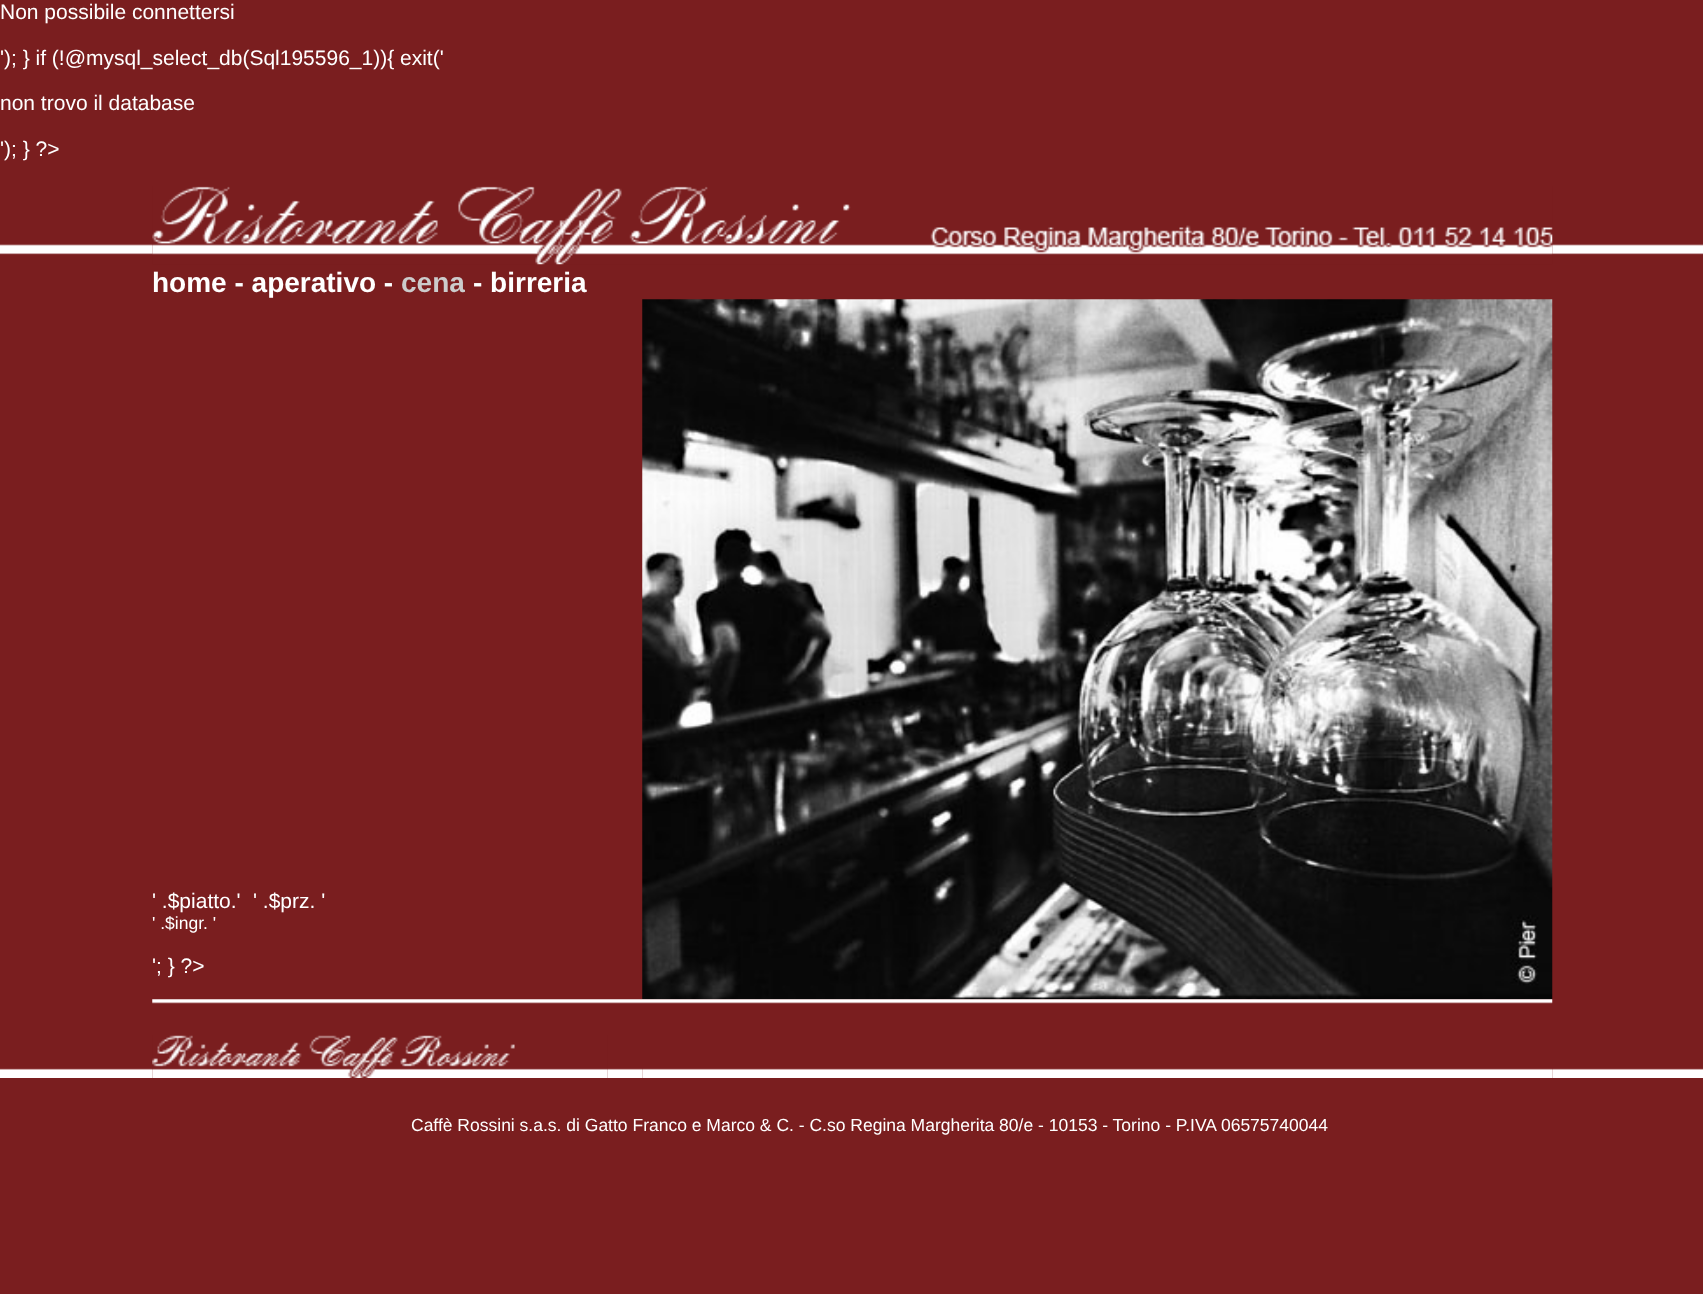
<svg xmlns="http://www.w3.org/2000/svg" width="1703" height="1294">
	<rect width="100%" height="100%" fill="#7A1E1F" />
	<g font-family="Liberation Sans" font-size="21" fill="#FFFFFF">
		<text x="0" y="19">Non possibile connettersi</text>
		<text x="0" y="65">'); } if (!@mysql_select_db(Sql195596_1)){ exit('</text>
		<text x="0" y="110">non trovo il database</text>
		<text x="0" y="156">'); } ?&gt;</text>
	</g>
	<image x="0" y="244" width="153" height="11" href="assets/img1.png" />
	<image x="1552" y="244" width="151" height="11" href="assets/img3.png" />
	<image x="152" y="186" width="1401" height="79" href="assets/img2.png" />
	<text x="152" y="292" font-family="Liberation Sans" font-size="28" font-weight="700" fill="#FFFFFF">home - aperativo -</text>
	<text x="401" y="292" font-family="Liberation Sans" font-size="28" font-weight="700" fill="#CCCCCC">cena</text>
	<text x="473" y="292" font-family="Liberation Sans" font-size="28" font-weight="700" fill="#FFFFFF">- birreria</text>
	<g font-family="Liberation Sans" font-size="21" fill="#FFFFFF">
		<text x="152" y="908">' .$piatto.'</text>
		<text x="253" y="908">' .$prz. '</text>
	</g>
	<text x="152" y="929" font-family="Liberation Sans" font-size="17.5" fill="#FFFFFF">' .$ingr. '</text>
	<text x="152" y="973" font-family="Liberation Sans" font-size="21" fill="#FFFFFF">'; } ?&gt;</text>
	<image x="642" y="299" width="911" height="701" href="assets/img4.png" />
	<image x="152" y="999" width="1401" height="5" href="assets/img5.png" />
	<image x="0" y="1068" width="153" height="10" href="assets/img6.png" />
	<image x="607" y="1068" width="36" height="10" href="assets/img8.png" />
	<image x="152" y="1035" width="456" height="43" href="assets/img7.png" />
	<image x="642" y="1068" width="911" height="10" href="assets/img9.png" />
	<image x="1552" y="1068" width="151" height="10" href="assets/img10.png" />
	<text x="411" y="1131" font-family="Liberation Sans" font-size="17.5" fill="#FFFFFF">Caffè Rossini s.a.s. di Gatto Franco e Marco &amp; C. - C.so Regina Margherita 80/e - 10153 - Torino - P.IVA 06575740044</text>
</svg>
